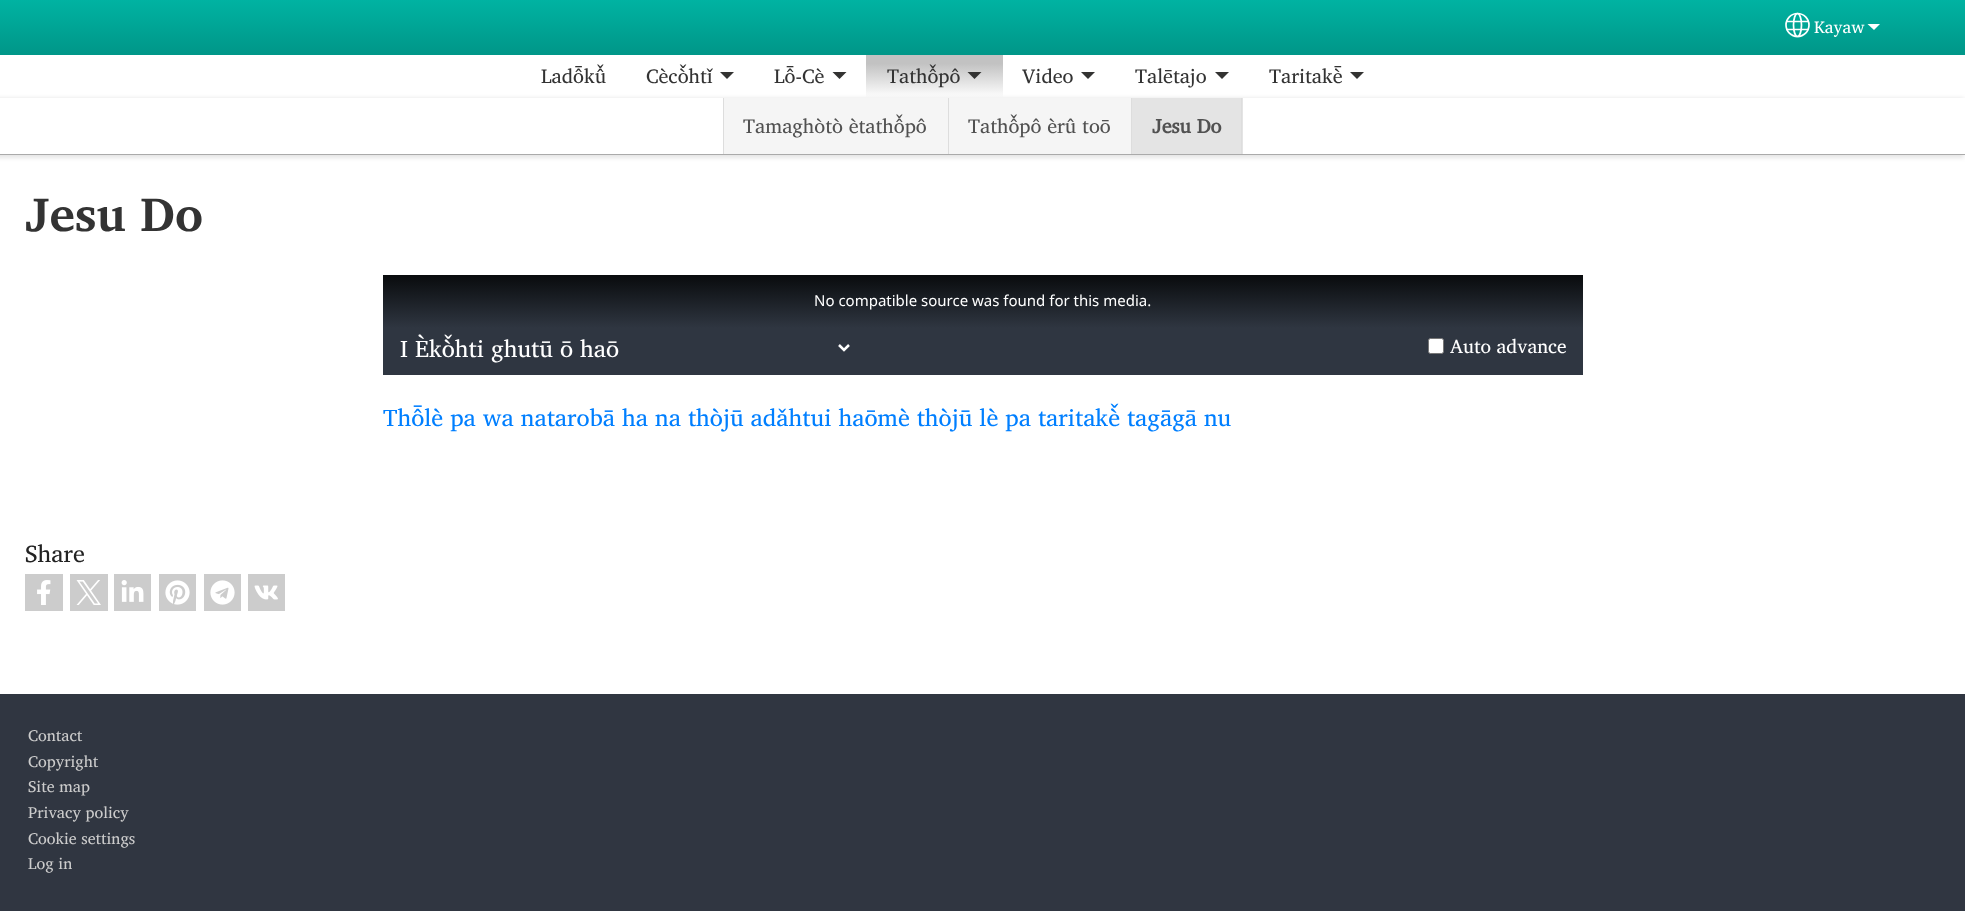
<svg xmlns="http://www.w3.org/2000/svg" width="1965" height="911">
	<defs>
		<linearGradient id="g1" gradientUnits="userSpaceOnUse" x1="983" y1="0" x2="983" y2="55"><stop offset="0" stop-color="#00B3A2" /><stop offset="1" stop-color="#009688" /></linearGradient>
		<linearGradient id="g2" gradientUnits="userSpaceOnUse" x1="934" y1="55" x2="934" y2="98"><stop offset="0.2" stop-color="#C2C2C2" /><stop offset="1" stop-color="#FFFFFF" /></linearGradient>
		<clipPath id="clip1"><path d="M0 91H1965V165H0ZM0 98H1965V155H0Z" clip-rule="evenodd" /></clipPath>
		<linearGradient id="g3" gradientUnits="userSpaceOnUse" x1="983" y1="275" x2="983" y2="328"><stop offset="0" stop-color="#090B0D" /><stop offset="1" stop-color="#2F3641" /></linearGradient>
	</defs>
	<rect width="100%" height="100%" fill="#FFFFFF" />
	<rect x="0" y="0" width="1965" height="55" fill="url(#g1)" />
	<circle cx="1797.5" cy="25" r="11.5" fill="none" stroke="#FEFFFF" stroke-width="1.7" />
	<ellipse cx="1797.5" cy="25" rx="4" ry="11.5" fill="none" stroke="#FEFFFF" stroke-width="1.7" />
	<path d="M1786.5 29.5H1808M1786.5 21.5H1808" fill="none" stroke="#FEFFFF" stroke-width="1.7" />
	<text x="1814" y="33" font-family="Charis SIL" font-size="17" fill="#FFFFFF">Kayaw</text>
	<path d="M1867.5 24H1880L1874 30Z" fill="#FEFFFF" />
	<g font-family="Charis SIL" font-size="20" fill="#333333">
		<text x="541" y="83">Ladô̄kû̌</text>
		<text x="646" y="83">Cècò̌htǐ</text>
	</g>
	<path d="M720 72H734L727 79Z" fill="#333332" />
	<rect x="866" y="55" width="137" height="42" fill="url(#g2)" />
	<text x="887" y="83" font-family="Charis SIL" font-size="20" fill="#333333">Tathô̌pô</text>
	<path d="M967.5 72H981.5L974.5 79Z" fill="#333332" />
	<g clip-path="url(#clip1)">
		<rect x="-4" y="98" width="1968" height="60" fill="#000000" fill-opacity="0.1" filter="blur(2px)" />
	</g>
	<rect x="0" y="154" width="1965" height="1" fill="#AAAAAA" />
	<rect x="724" y="98" width="224" height="56" fill="#F5F5F5" />
	<rect x="723" y="98" width="1" height="56" fill="#DDDDDD" />
	<text x="743" y="133" font-family="Charis SIL" font-size="20" fill="#515151">Tamaghòtò ètathô̌pô</text>
	<rect x="949" y="98" width="182" height="56" fill="#F5F5F5" />
	<rect x="948" y="98" width="1" height="56" fill="#DDDDDD" />
	<text x="968" y="133" font-family="Charis SIL" font-size="20" fill="#515151">Tathô̌pô èrû toō</text>
	<rect x="1132" y="98" width="111" height="56" fill="#E4E4E4" />
	<rect x="1241" y="98" width="1" height="56" fill="#DDDDDD" />
	<rect x="1131" y="98" width="1" height="56" fill="#DDDDDD" />
	<text x="1152" y="133" font-family="'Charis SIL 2'" font-size="20" font-weight="700" fill="#515151">Jesu Do</text>
	<text x="774" y="83" font-family="Charis SIL" font-size="20" fill="#333333">Lô̄-Cè</text>
	<path d="M832.5 72H846.5L839.5 79Z" fill="#333332" />
	<text x="1022" y="83" font-family="Charis SIL" font-size="20" fill="#333333">Video</text>
	<path d="M1081 72H1095L1088 79Z" fill="#333332" />
	<text x="1135" y="83" font-family="Charis SIL" font-size="20" fill="#333333">Talētajo</text>
	<path d="M1215 72H1229L1222 79Z" fill="#333332" />
	<text x="1269" y="83" font-family="Charis SIL" font-size="20" fill="#333333">Taritakè̄</text>
	<path d="M1350 72H1364L1357 79Z" fill="#333332" />
	<text x="25" y="231" font-family="Charis SIL" font-size="48" font-weight="700" fill="#333333">Jesu Do</text>
	<rect x="383" y="328" width="1200" height="47" fill="#2F3641" />
	<rect x="383" y="275" width="1200" height="53" fill="url(#g3)" />
	<text x="814" y="306" font-family="Noto Sans" font-size="15" fill="#FFFFFF">No compatible source was found for this media.</text>
	<path d="M839 345L844 350L849 345" fill="none" stroke="#FFFFFF" stroke-width="2.5" />
	<text x="400" y="357" font-family="Charis SIL" font-size="24" fill="#FFFFFF">I Èkò̌hti ghutū ō haō</text>
	<rect x="1428.5" y="338.5" width="15" height="15" rx="2" fill="#FFFFFF" stroke="#767676" />
	<text x="1450" y="353" font-family="Charis SIL" font-size="19.25" fill="#FFFFFF">Auto advance</text>
	<text x="383" y="426" font-family="Charis SIL" font-size="24" fill="#007FFF">Thô̄lè pa wa natarobā ha na thòjū adǎhtui haōmè thòjū lè pa taritakè̌ tagāgā nu</text>
	<text x="25" y="562" font-family="Charis SIL" font-size="24" fill="#222222">Share</text>
	<rect x="25" y="574" width="38" height="37" fill="#CCCCCC" />
	<image x="37" y="580" width="14" height="25" href="assets/img1.png" />
	<rect x="70" y="574" width="38" height="37" fill="#CCCCCC" />
	<image x="76" y="580" width="25" height="25" href="assets/img2.png" />
	<rect x="114" y="574" width="37" height="37" fill="#CCCCCC" />
	<image x="121" y="580" width="23" height="22" href="assets/img3.png" />
	<rect x="159" y="574" width="37" height="37" fill="#CCCCCC" />
	<image x="165" y="580" width="25" height="25" href="assets/img4.png" />
	<rect x="204" y="574" width="37" height="37" fill="#CCCCCC" />
	<image x="210" y="580" width="25" height="25" href="assets/img5.png" />
	<rect x="248" y="574" width="37" height="37" fill="#CCCCCC" />
	<image x="254" y="585" width="24" height="15" href="assets/img6.png" />
	<rect x="0" y="694" width="1965" height="217" fill="#303641" />
	<g font-family="Charis SIL" font-size="16" fill="#CCCCCC">
		<text x="28" y="741">Contact</text>
		<text x="28" y="767">Copyright</text>
		<text x="28" y="792">Site map</text>
		<text x="28" y="818">Privacy policy</text>
		<text x="28" y="844">Cookie settings</text>
		<text x="28" y="869">Log in</text>
	</g>
</svg>
